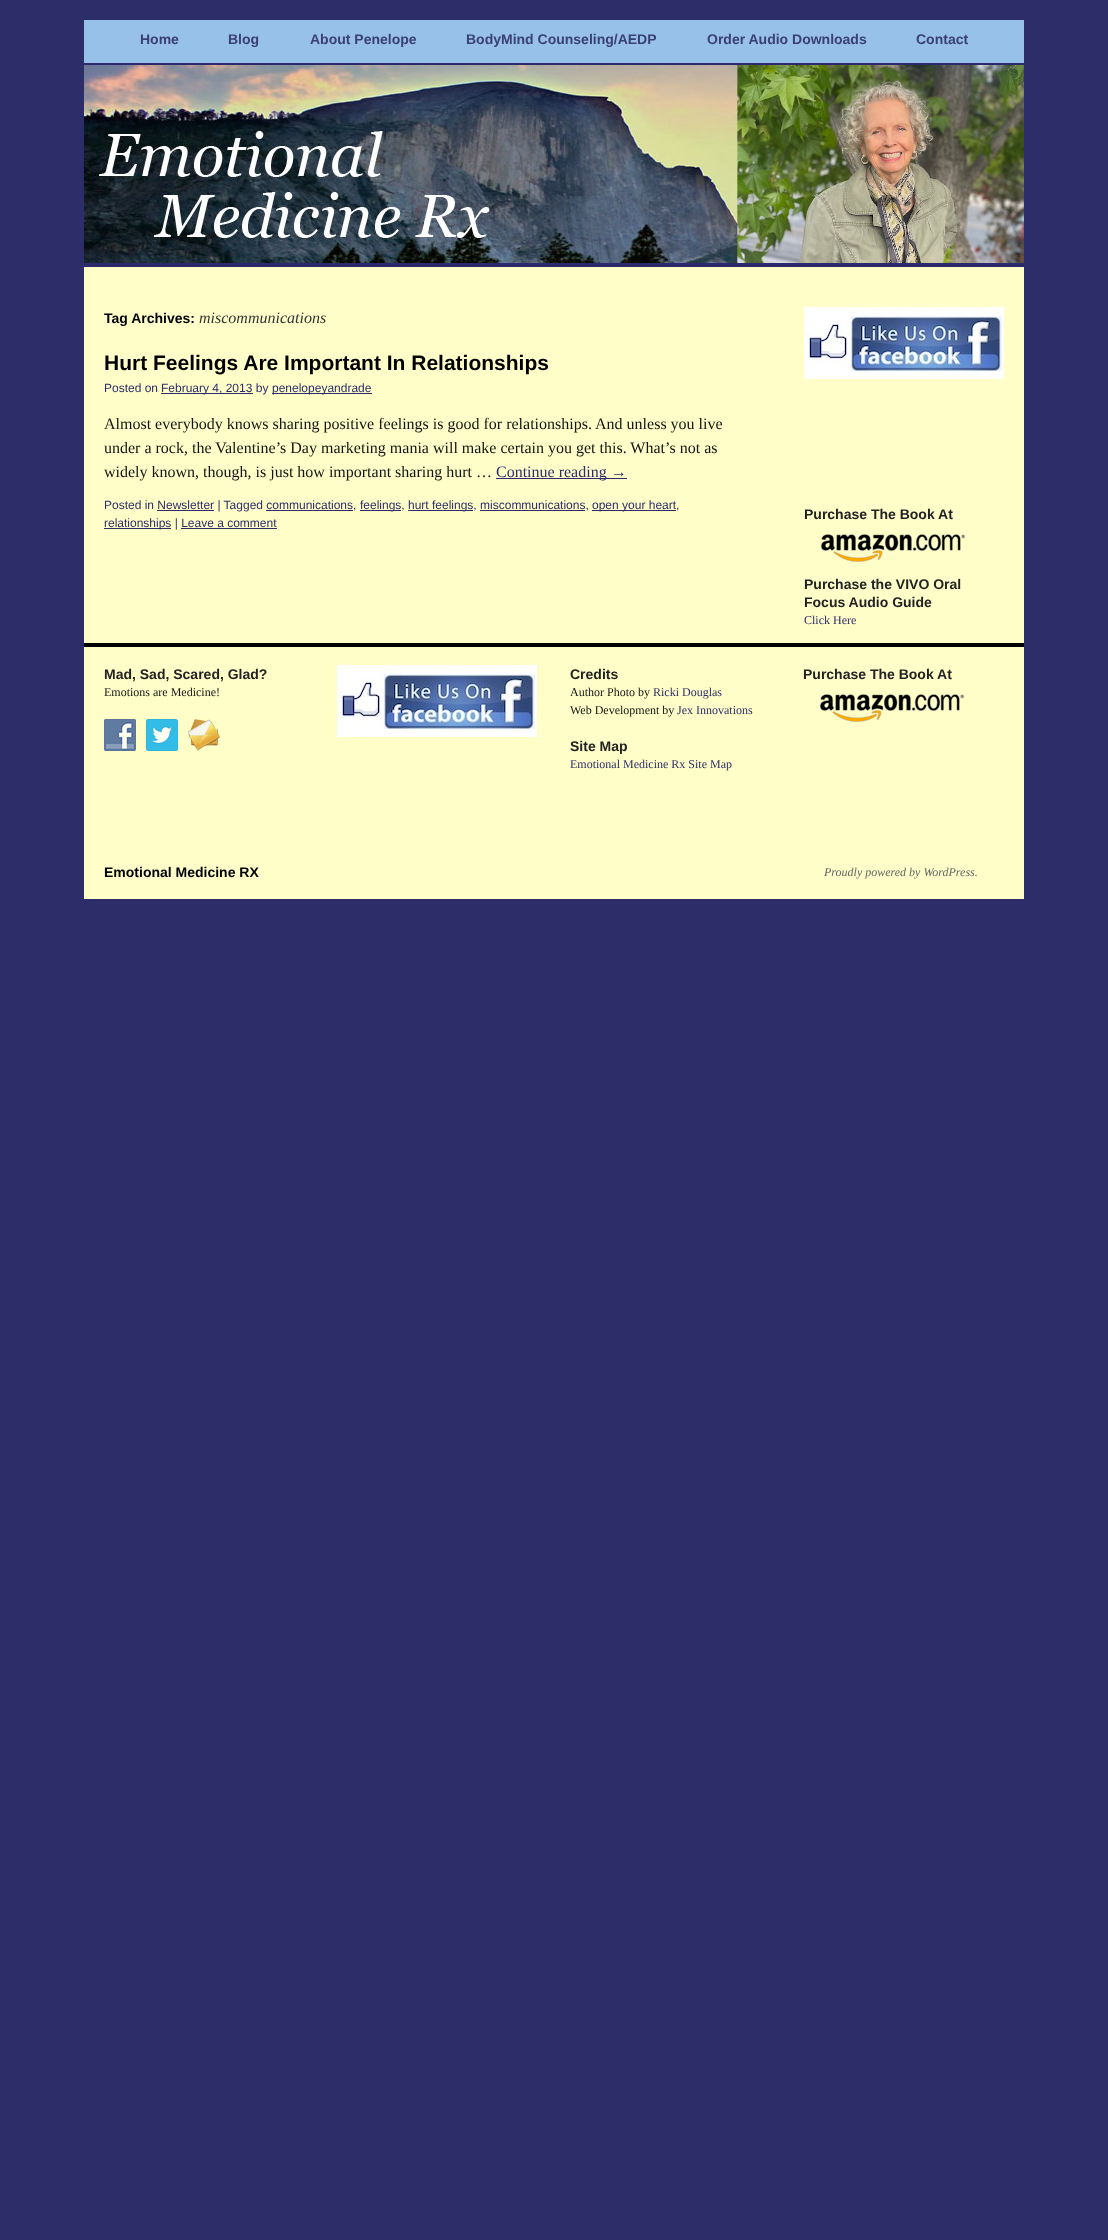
<svg xmlns="http://www.w3.org/2000/svg" width="1108" height="2240">
	<rect width="100%" height="100%" fill="#2D2D69" />
	<rect x="84" y="267" width="940" height="632" fill="#FFFEC9" />
	<rect x="84" y="20" width="940" height="43" fill="#97C1E9" />
	<g font-family="Liberation Sans" font-size="14" font-weight="700" fill="#3B4074">
		<text x="140" y="44">Home</text>
		<text x="228" y="44">Blog</text>
		<text x="310" y="44">About Penelope</text>
		<text x="466" y="44">BodyMind Counseling/AEDP</text>
		<text x="707" y="44">Order Audio Downloads</text>
		<text x="916" y="44">Contact</text>
	</g>
	<rect x="84" y="63" width="940" height="2" fill="#2C2A6B" />
	<rect x="84" y="263" width="940" height="4" fill="#2C2A6B" />
	<image x="84" y="65" width="940" height="198" href="assets/img1.png" />
	<text x="104" y="323" font-family="Liberation Sans" font-size="14" font-weight="700" fill="#000000">Tag Archives:</text>
	<text x="199" y="323" font-family="Liberation Serif" font-size="16" font-style="italic" fill="#333333">miscommunications</text>
	<text x="104" y="370" font-family="Liberation Sans" font-size="21" font-weight="700" fill="#000000">Hurt Feelings Are Important In Relationships</text>
	<text x="104" y="392" font-family="Liberation Sans" font-size="12" fill="#2D2D69">Posted on</text>
	<rect x="161" y="393" width="92" height="1" fill="#2D2D69" />
	<text x="161" y="392" font-family="Liberation Sans" font-size="12" fill="#2D2D69">February 4, 2013 by</text>
	<rect x="272" y="393" width="100" height="1" fill="#2D2D69" />
	<text x="272" y="392" font-family="Liberation Sans" font-size="12" fill="#2D2D69">penelopeyandrade</text>
	<g font-family="Liberation Serif" font-size="16" fill="#141413">
		<text x="104" y="429">Almost everybody knows sharing positive feelings is good for relationships. And unless you live</text>
		<text x="104" y="453">under a rock, the Valentine’s Day marketing mania will make certain you get this. What’s not as</text>
		<text x="104" y="477">widely known, though, is just how important sharing hurt …</text>
	</g>
	<rect x="496" y="478" width="131" height="1" fill="#2D2D69" />
	<text x="496" y="477" font-family="Liberation Serif" font-size="16" fill="#2D2D69">Continue reading →</text>
	<text x="104" y="509" font-family="Liberation Sans" font-size="12" fill="#2D2D69">Posted in Newsletter | Tagged communications,</text>
	<rect x="157" y="510" width="57" height="1" fill="#2D2D69" />
	<rect x="360" y="510" width="41" height="1" fill="#2D2D69" />
	<text x="360" y="509" font-family="Liberation Sans" font-size="12" fill="#2D2D69">feelings,</text>
	<rect x="266" y="510" width="87" height="1" fill="#2D2D69" />
	<rect x="408" y="510" width="65" height="1" fill="#2D2D69" />
	<text x="408" y="509" font-family="Liberation Sans" font-size="12" fill="#2D2D69">hurt feelings, miscommunications,</text>
	<rect x="480" y="510" width="105" height="1" fill="#2D2D69" />
	<rect x="592" y="510" width="84" height="1" fill="#2D2D69" />
	<text x="592" y="509" font-family="Liberation Sans" font-size="12" fill="#2D2D69">open your heart,</text>
	<rect x="104" y="528" width="67" height="1" fill="#2D2D69" />
	<text x="104" y="527" font-family="Liberation Sans" font-size="12" fill="#2D2D69">relationships | Leave a comment</text>
	<rect x="181" y="528" width="96" height="1" fill="#2D2D69" />
	<image x="804" y="307" width="200" height="72" href="assets/img2.png" />
	<text x="804" y="519" font-family="Liberation Sans" font-size="14" font-weight="700" fill="#222222">Purchase The Book At</text>
	<image x="820" y="534" width="146" height="28" href="assets/img3.png" />
	<g font-family="Liberation Sans" font-size="14" font-weight="700" fill="#222222">
		<text x="804" y="589">Purchase the VIVO Oral</text>
		<text x="804" y="607">Focus Audio Guide</text>
	</g>
	<text x="804" y="624" font-family="Liberation Serif" font-size="12" fill="#2D2D69">Click Here</text>
	<rect x="84" y="643" width="940" height="4" fill="#000000" />
	<text x="104" y="679" font-family="Liberation Sans" font-size="14" font-weight="700" fill="#222222">Mad, Sad, Scared, Glad?</text>
	<text x="104" y="696" font-family="Liberation Serif" font-size="12" fill="#141413">Emotions are Medicine!</text>
	<image x="104" y="719" width="32" height="32" href="assets/img4.png" />
	<image x="146" y="719" width="32" height="32" href="assets/img5.png" />
	<image x="188" y="719" width="32" height="32" href="assets/img6.png" />
	<image x="337" y="665" width="200" height="72" href="assets/img2.png" />
	<text x="570" y="679" font-family="Liberation Sans" font-size="14" font-weight="700" fill="#222222">Credits</text>
	<text x="570" y="696" font-family="Liberation Serif" font-size="12" fill="#141413">Author Photo by</text>
	<text x="653" y="696" font-family="Liberation Serif" font-size="12" fill="#2D2D69">Ricki Douglas</text>
	<text x="570" y="714" font-family="Liberation Serif" font-size="12" fill="#141413">Web Development by</text>
	<text x="677" y="714" font-family="Liberation Serif" font-size="12" fill="#2D2D69">Jex Innovations</text>
	<text x="570" y="751" font-family="Liberation Sans" font-size="14" font-weight="700" fill="#222222">Site Map</text>
	<text x="570" y="768" font-family="Liberation Serif" font-size="12" fill="#2D2D69">Emotional Medicine Rx Site Map</text>
	<text x="803" y="679" font-family="Liberation Sans" font-size="14" font-weight="700" fill="#222222">Purchase The Book At</text>
	<image x="819" y="694" width="146" height="28" href="assets/img3.png" />
	<text x="104" y="877" font-family="Liberation Sans" font-size="14" font-weight="700" fill="#000000">Emotional Medicine RX</text>
	<text x="824" y="876" font-family="Liberation Serif" font-size="12" font-style="italic" fill="#666666">Proudly powered by WordPress.</text>
</svg>
